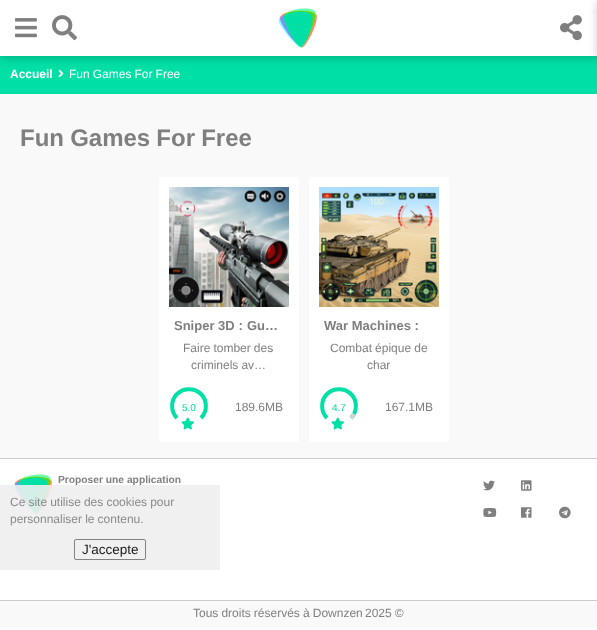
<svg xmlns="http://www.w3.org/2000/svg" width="597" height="630">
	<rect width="100%" height="100%" fill="#FFFFFF" />
	<rect x="0" y="56" width="597" height="38" fill="#00DFA5" />
	<image x="58" y="69" width="6" height="9" href="assets/img5.png" />
	<rect x="0" y="2" width="597" height="56" fill="#000000" fill-opacity="0.2" filter="blur(4px)" />
	<rect x="0" y="0" width="597" height="56" fill="#FFFFFF" />
	<image x="15" y="18" width="22" height="20" href="assets/img1.png" />
	<image x="52" y="15" width="25" height="26" href="assets/img2.png" />
	<image x="278" y="8" width="39" height="40" href="assets/img3.png" />
	<image x="560" y="15" width="22" height="26" href="assets/img4.png" />
	<rect x="597" y="2" width="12" height="55" fill="#000000" fill-opacity="0.2" filter="blur(4px)" />
	<text x="10" y="78" font-family="Liberation Sans" font-size="12" font-weight="700" fill="#FFFFFF">Accueil</text>
	<text x="69" y="78" word-spacing="-0.25" font-family="Liberation Sans" font-size="12" fill="#FFFFFF">Fun Games For Free</text>
	<rect x="0" y="94" width="597" height="364" fill="#F9F9F9" />
	<text x="20" y="146" word-spacing="-0.5" font-family="Liberation Sans" font-size="24" font-weight="700" fill="#7F7F7F">Fun Games For Free</text>
	<rect x="159" y="177" width="140" height="265" fill="#FFFFFF" />
	<image x="169" y="187" width="120" height="120" href="assets/img6.png" />
	<text x="174" y="330" font-family="Liberation Sans" font-size="13" font-weight="700" fill="#7F7F7F">Sniper 3D</text>
	<text x="234" y="330" font-family="WenQuanYi Zen Hei" font-size="13" font-weight="700" fill="#7F7F7F">：</text>
	<text x="247" y="330" font-family="Liberation Sans" font-size="13" font-weight="700" fill="#7F7F7F">Gu…</text>
	<g font-family="Liberation Sans" font-size="12" fill="#7F7F7F">
		<text x="183" y="352" word-spacing="-0.25">Faire tomber des</text>
		<text x="191" y="369" word-spacing="-0.25">criminels av…</text>
	</g>
	<path d="M201 418C207.5 411.5 207.5 400.5 201 394C194.5 387.5 183.5 387.5 177 394C170.5 400.5 170.5 411.5 177 418" fill="none" stroke="#00DFA5" stroke-width="4" />
	<text x="182" y="411" font-family="Liberation Sans" font-size="10" fill="#00DFA5">5.0</text>
	<image x="181" y="417" width="13" height="13" href="assets/img7.png" />
	<text x="235" y="411" font-family="Liberation Sans" font-size="12" fill="#7F7F7F">189.6MB</text>
	<rect x="309" y="177" width="140" height="265" fill="#FFFFFF" />
	<image x="319" y="187" width="120" height="120" href="assets/img8.png" />
	<text x="324" y="330" font-family="Liberation Sans" font-size="13" font-weight="700" fill="#7F7F7F">War Machines</text>
	<text x="410" y="330" font-family="WenQuanYi Zen Hei" font-size="13" font-weight="700" fill="#7F7F7F">：</text>
	<g font-family="Liberation Sans" font-size="12" fill="#7F7F7F">
		<text x="330" y="352" word-spacing="-0.25">Combat épique de</text>
		<text x="367" y="369">char</text>
	</g>
	<path d="M351 418C357.5 411.5 357.5 400.5 351 394C344.5 387.5 333.5 387.5 327 394C320.5 400.5 320.5 411.5 327 418" fill="none" stroke="#00DFA5" stroke-width="4" />
	<text x="332" y="411" font-family="Liberation Sans" font-size="10" fill="#00DFA5">4.7</text>
	<path d="M351 418L354 414" fill="none" stroke="#D3D6D6" stroke-width="4" />
	<image x="331" y="417" width="13" height="13" href="assets/img7.png" />
	<text x="385" y="411" font-family="Liberation Sans" font-size="12" fill="#7F7F7F">167.1MB</text>
	<rect x="0" y="458" width="597" height="1" fill="#CCCCCC" />
	<rect x="0" y="600" width="597" height="1" fill="#CCCCCC" />
	<image x="13" y="474" width="39" height="40" href="assets/img3.png" />
	<text x="58" y="483" font-family="Liberation Sans" font-size="10.25" font-weight="700" fill="#7F7F7F">Proposer une application</text>
	<image x="483" y="480" width="12" height="11" href="assets/img9.png" />
	<image x="521" y="480" width="11" height="11" href="assets/img10.png" />
	<image x="483" y="508" width="14" height="9" href="assets/img11.png" />
	<image x="521" y="507" width="11" height="11" href="assets/img12.png" />
	<image x="559" y="506" width="12" height="13" href="assets/img13.png" />
	<rect x="0" y="601" width="597" height="27" fill="#F9F9F9" />
	<g font-family="Liberation Sans" font-size="12" fill="#7F7F7F">
		<text x="193" y="617" word-spacing="-0.25">Tous droits réservés à Downzen</text>
		<text x="365" y="617" word-spacing="-0.25">2025 ©</text>
	</g>
	<rect x="0" y="485" width="220" height="85" fill="#EEEEEE" fill-opacity="0.9" />
	<g font-family="Liberation Sans" font-size="12" fill="#8A8A8A">
		<text x="10" y="506" word-spacing="-0.25">Ce site utilise des cookies pour</text>
		<text x="10" y="523" word-spacing="-0.25">personnaliser le contenu.</text>
	</g>
	<rect x="74.5" y="539.5" width="71" height="20" rx="1.5" fill="none" stroke="#828282" />
	<text x="82" y="554" font-family="Liberation Sans" font-size="13.5" fill="#1A1A1A">J'accepte</text>
</svg>
